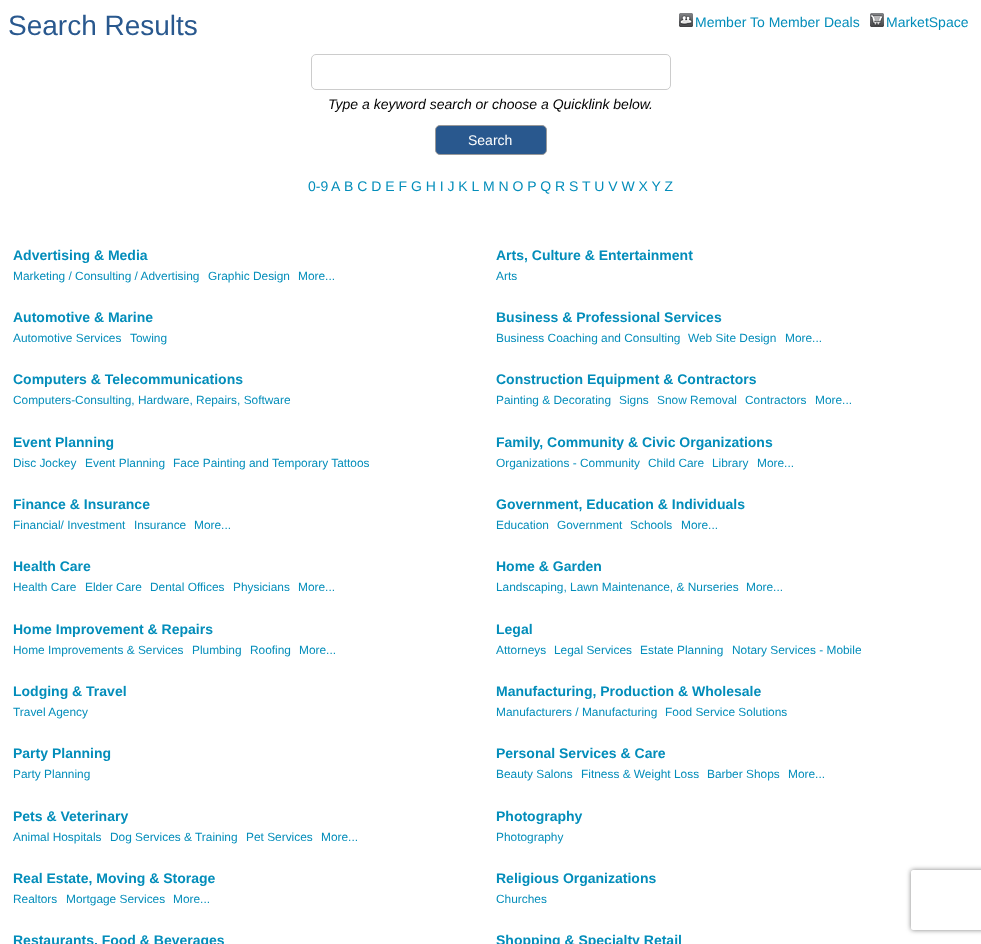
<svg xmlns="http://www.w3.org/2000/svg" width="981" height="944">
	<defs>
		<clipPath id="clip1"><path d="M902 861H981V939H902ZM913 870H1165C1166 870 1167 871 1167 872V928C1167 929 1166 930 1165 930H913C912 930 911 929 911 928V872C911 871 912 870 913 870Z" clip-rule="evenodd" /></clipPath>
	</defs>
	<rect width="100%" height="100%" fill="#FFFFFF" />
	<text x="8" y="35" font-family="Liberation Sans" font-size="28" fill="#29588E">Search Results</text>
	<image x="679" y="13" width="14" height="14" href="assets/img1.png" />
	<text x="695" y="27" font-family="Liberation Sans" font-size="14" fill="#038DBA">Member To Member Deals</text>
	<image x="870" y="13" width="14" height="14" href="assets/img2.png" />
	<text x="886" y="27" font-family="Liberation Sans" font-size="14" fill="#038DBA">MarketSpace</text>
	<rect x="311.5" y="54.5" width="359" height="35" rx="4.5" fill="none" stroke="#CCCCCC" />
	<text x="328" y="109" font-family="Liberation Sans" font-size="14" font-style="italic" fill="#000000">Type a keyword search or choose a Quicklink below.</text>
	<rect x="435.5" y="125.5" width="111" height="29" rx="4.5" fill="#29588E" stroke="#999999" />
	<text x="468" y="145" font-family="Liberation Sans" font-size="14" fill="#FFFFFF">Search</text>
	<g font-family="Liberation Sans" font-size="14" fill="#038DBA">
		<text x="308" y="191">0-9</text>
		<text x="331" y="191">A</text>
		<text x="344" y="191">B C D E F G H I J K L</text>
		<text x="483" y="191">M N O P Q R S T U V W X Y Z</text>
	</g>
	<text x="13" y="260" font-family="Liberation Sans" font-size="14" font-weight="700" fill="#038DBA">Advertising &amp; Media</text>
	<g font-family="Liberation Sans" font-size="11.9" fill="#038DBA">
		<text x="13" y="280">Marketing / Consulting / Advertising</text>
		<text x="208" y="280">Graphic Design</text>
		<text x="298" y="280">More...</text>
	</g>
	<text x="496" y="260" font-family="Liberation Sans" font-size="14" font-weight="700" fill="#038DBA">Arts, Culture &amp; Entertainment</text>
	<text x="496" y="280" font-family="Liberation Sans" font-size="11.9" fill="#038DBA">Arts</text>
	<text x="13" y="322" font-family="Liberation Sans" font-size="14" font-weight="700" fill="#038DBA">Automotive &amp; Marine</text>
	<g font-family="Liberation Sans" font-size="11.9" fill="#038DBA">
		<text x="13" y="342">Automotive Services</text>
		<text x="130" y="342">Towing</text>
	</g>
	<text x="496" y="322" font-family="Liberation Sans" font-size="14" font-weight="700" fill="#038DBA">Business &amp; Professional Services</text>
	<g font-family="Liberation Sans" font-size="11.9" fill="#038DBA">
		<text x="496" y="342">Business Coaching and Consulting</text>
		<text x="688" y="342">Web Site Design</text>
		<text x="785" y="342">More...</text>
	</g>
	<text x="13" y="384" font-family="Liberation Sans" font-size="14" font-weight="700" fill="#038DBA">Computers &amp; Telecommunications</text>
	<text x="13" y="404" font-family="Liberation Sans" font-size="11.9" fill="#038DBA">Computers-Consulting, Hardware, Repairs, Software</text>
	<text x="496" y="384" font-family="Liberation Sans" font-size="14" font-weight="700" fill="#038DBA">Construction Equipment &amp; Contractors</text>
	<g font-family="Liberation Sans" font-size="11.9" fill="#038DBA">
		<text x="496" y="404">Painting &amp; Decorating</text>
		<text x="619" y="404">Signs</text>
		<text x="657" y="404">Snow Removal</text>
		<text x="745" y="404">Contractors</text>
		<text x="815" y="404">More...</text>
	</g>
	<text x="13" y="447" font-family="Liberation Sans" font-size="14" font-weight="700" fill="#038DBA">Event Planning</text>
	<g font-family="Liberation Sans" font-size="11.9" fill="#038DBA">
		<text x="13" y="467">Disc Jockey</text>
		<text x="85" y="467">Event Planning</text>
		<text x="173" y="467">Face Painting and Temporary Tattoos</text>
	</g>
	<text x="496" y="447" font-family="Liberation Sans" font-size="14" font-weight="700" fill="#038DBA">Family, Community &amp; Civic Organizations</text>
	<g font-family="Liberation Sans" font-size="11.9" fill="#038DBA">
		<text x="496" y="467">Organizations - Community</text>
		<text x="648" y="467">Child Care</text>
		<text x="712" y="467">Library</text>
		<text x="757" y="467">More...</text>
	</g>
	<text x="13" y="509" font-family="Liberation Sans" font-size="14" font-weight="700" fill="#038DBA">Finance &amp; Insurance</text>
	<g font-family="Liberation Sans" font-size="11.9" fill="#038DBA">
		<text x="13" y="529">Financial/ Investment</text>
		<text x="134" y="529">Insurance</text>
		<text x="194" y="529">More...</text>
	</g>
	<text x="496" y="509" font-family="Liberation Sans" font-size="14" font-weight="700" fill="#038DBA">Government, Education &amp; Individuals</text>
	<g font-family="Liberation Sans" font-size="11.9" fill="#038DBA">
		<text x="496" y="529">Education</text>
		<text x="557" y="529">Government</text>
		<text x="630" y="529">Schools</text>
		<text x="681" y="529">More...</text>
	</g>
	<text x="13" y="571" font-family="Liberation Sans" font-size="14" font-weight="700" fill="#038DBA">Health Care</text>
	<g font-family="Liberation Sans" font-size="11.9" fill="#038DBA">
		<text x="13" y="591">Health Care</text>
		<text x="85" y="591">Elder Care</text>
		<text x="150" y="591">Dental Offices</text>
		<text x="233" y="591">Physicians</text>
		<text x="298" y="591">More...</text>
	</g>
	<text x="496" y="571" font-family="Liberation Sans" font-size="14" font-weight="700" fill="#038DBA">Home &amp; Garden</text>
	<g font-family="Liberation Sans" font-size="11.9" fill="#038DBA">
		<text x="496" y="591">Landscaping, Lawn Maintenance, &amp; Nurseries</text>
		<text x="746" y="591">More...</text>
	</g>
	<text x="13" y="634" font-family="Liberation Sans" font-size="14" font-weight="700" fill="#038DBA">Home Improvement &amp; Repairs</text>
	<g font-family="Liberation Sans" font-size="11.9" fill="#038DBA">
		<text x="13" y="654">Home Improvements &amp; Services</text>
		<text x="192" y="654">Plumbing</text>
		<text x="250" y="654">Roofing</text>
		<text x="299" y="654">More...</text>
	</g>
	<text x="496" y="634" font-family="Liberation Sans" font-size="14" font-weight="700" fill="#038DBA">Legal</text>
	<g font-family="Liberation Sans" font-size="11.9" fill="#038DBA">
		<text x="496" y="654">Attorneys</text>
		<text x="554" y="654">Legal Services</text>
		<text x="640" y="654">Estate Planning</text>
		<text x="732" y="654">Notary Services - Mobile</text>
	</g>
	<text x="13" y="696" font-family="Liberation Sans" font-size="14" font-weight="700" fill="#038DBA">Lodging &amp; Travel</text>
	<text x="13" y="716" font-family="Liberation Sans" font-size="11.9" fill="#038DBA">Travel Agency</text>
	<text x="496" y="696" font-family="Liberation Sans" font-size="14" font-weight="700" fill="#038DBA">Manufacturing, Production &amp; Wholesale</text>
	<g font-family="Liberation Sans" font-size="11.9" fill="#038DBA">
		<text x="496" y="716">Manufacturers / Manufacturing</text>
		<text x="665" y="716">Food Service Solutions</text>
	</g>
	<text x="13" y="758" font-family="Liberation Sans" font-size="14" font-weight="700" fill="#038DBA">Party Planning</text>
	<text x="13" y="778" font-family="Liberation Sans" font-size="11.9" fill="#038DBA">Party Planning</text>
	<text x="496" y="758" font-family="Liberation Sans" font-size="14" font-weight="700" fill="#038DBA">Personal Services &amp; Care</text>
	<g font-family="Liberation Sans" font-size="11.9" fill="#038DBA">
		<text x="496" y="778">Beauty Salons</text>
		<text x="581" y="778">Fitness &amp; Weight Loss</text>
		<text x="707" y="778">Barber Shops</text>
		<text x="788" y="778">More...</text>
	</g>
	<text x="13" y="821" font-family="Liberation Sans" font-size="14" font-weight="700" fill="#038DBA">Pets &amp; Veterinary</text>
	<g font-family="Liberation Sans" font-size="11.9" fill="#038DBA">
		<text x="13" y="841">Animal Hospitals</text>
		<text x="110" y="841">Dog Services &amp; Training</text>
		<text x="246" y="841">Pet Services</text>
		<text x="321" y="841">More...</text>
	</g>
	<text x="496" y="821" font-family="Liberation Sans" font-size="14" font-weight="700" fill="#038DBA">Photography</text>
	<text x="496" y="841" font-family="Liberation Sans" font-size="11.9" fill="#038DBA">Photography</text>
	<text x="13" y="883" font-family="Liberation Sans" font-size="14" font-weight="700" fill="#038DBA">Real Estate, Moving &amp; Storage</text>
	<g font-family="Liberation Sans" font-size="11.9" fill="#038DBA">
		<text x="13" y="903">Realtors</text>
		<text x="66" y="903">Mortgage Services</text>
		<text x="173" y="903">More...</text>
	</g>
	<text x="496" y="883" font-family="Liberation Sans" font-size="14" font-weight="700" fill="#038DBA">Religious Organizations</text>
	<text x="496" y="903" font-family="Liberation Sans" font-size="11.9" fill="#038DBA">Churches</text>
	<g font-family="Liberation Sans" font-size="14" font-weight="700" fill="#038DBA">
		<text x="13" y="945">Restaurants, Food &amp; Beverages</text>
		<text x="496" y="945">Shopping &amp; Specialty Retail</text>
	</g>
	<g clip-path="url(#clip1)">
		<rect x="911" y="870" width="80" height="60" rx="2" fill="#808080" filter="blur(2.5px)" />
	</g>
</svg>
